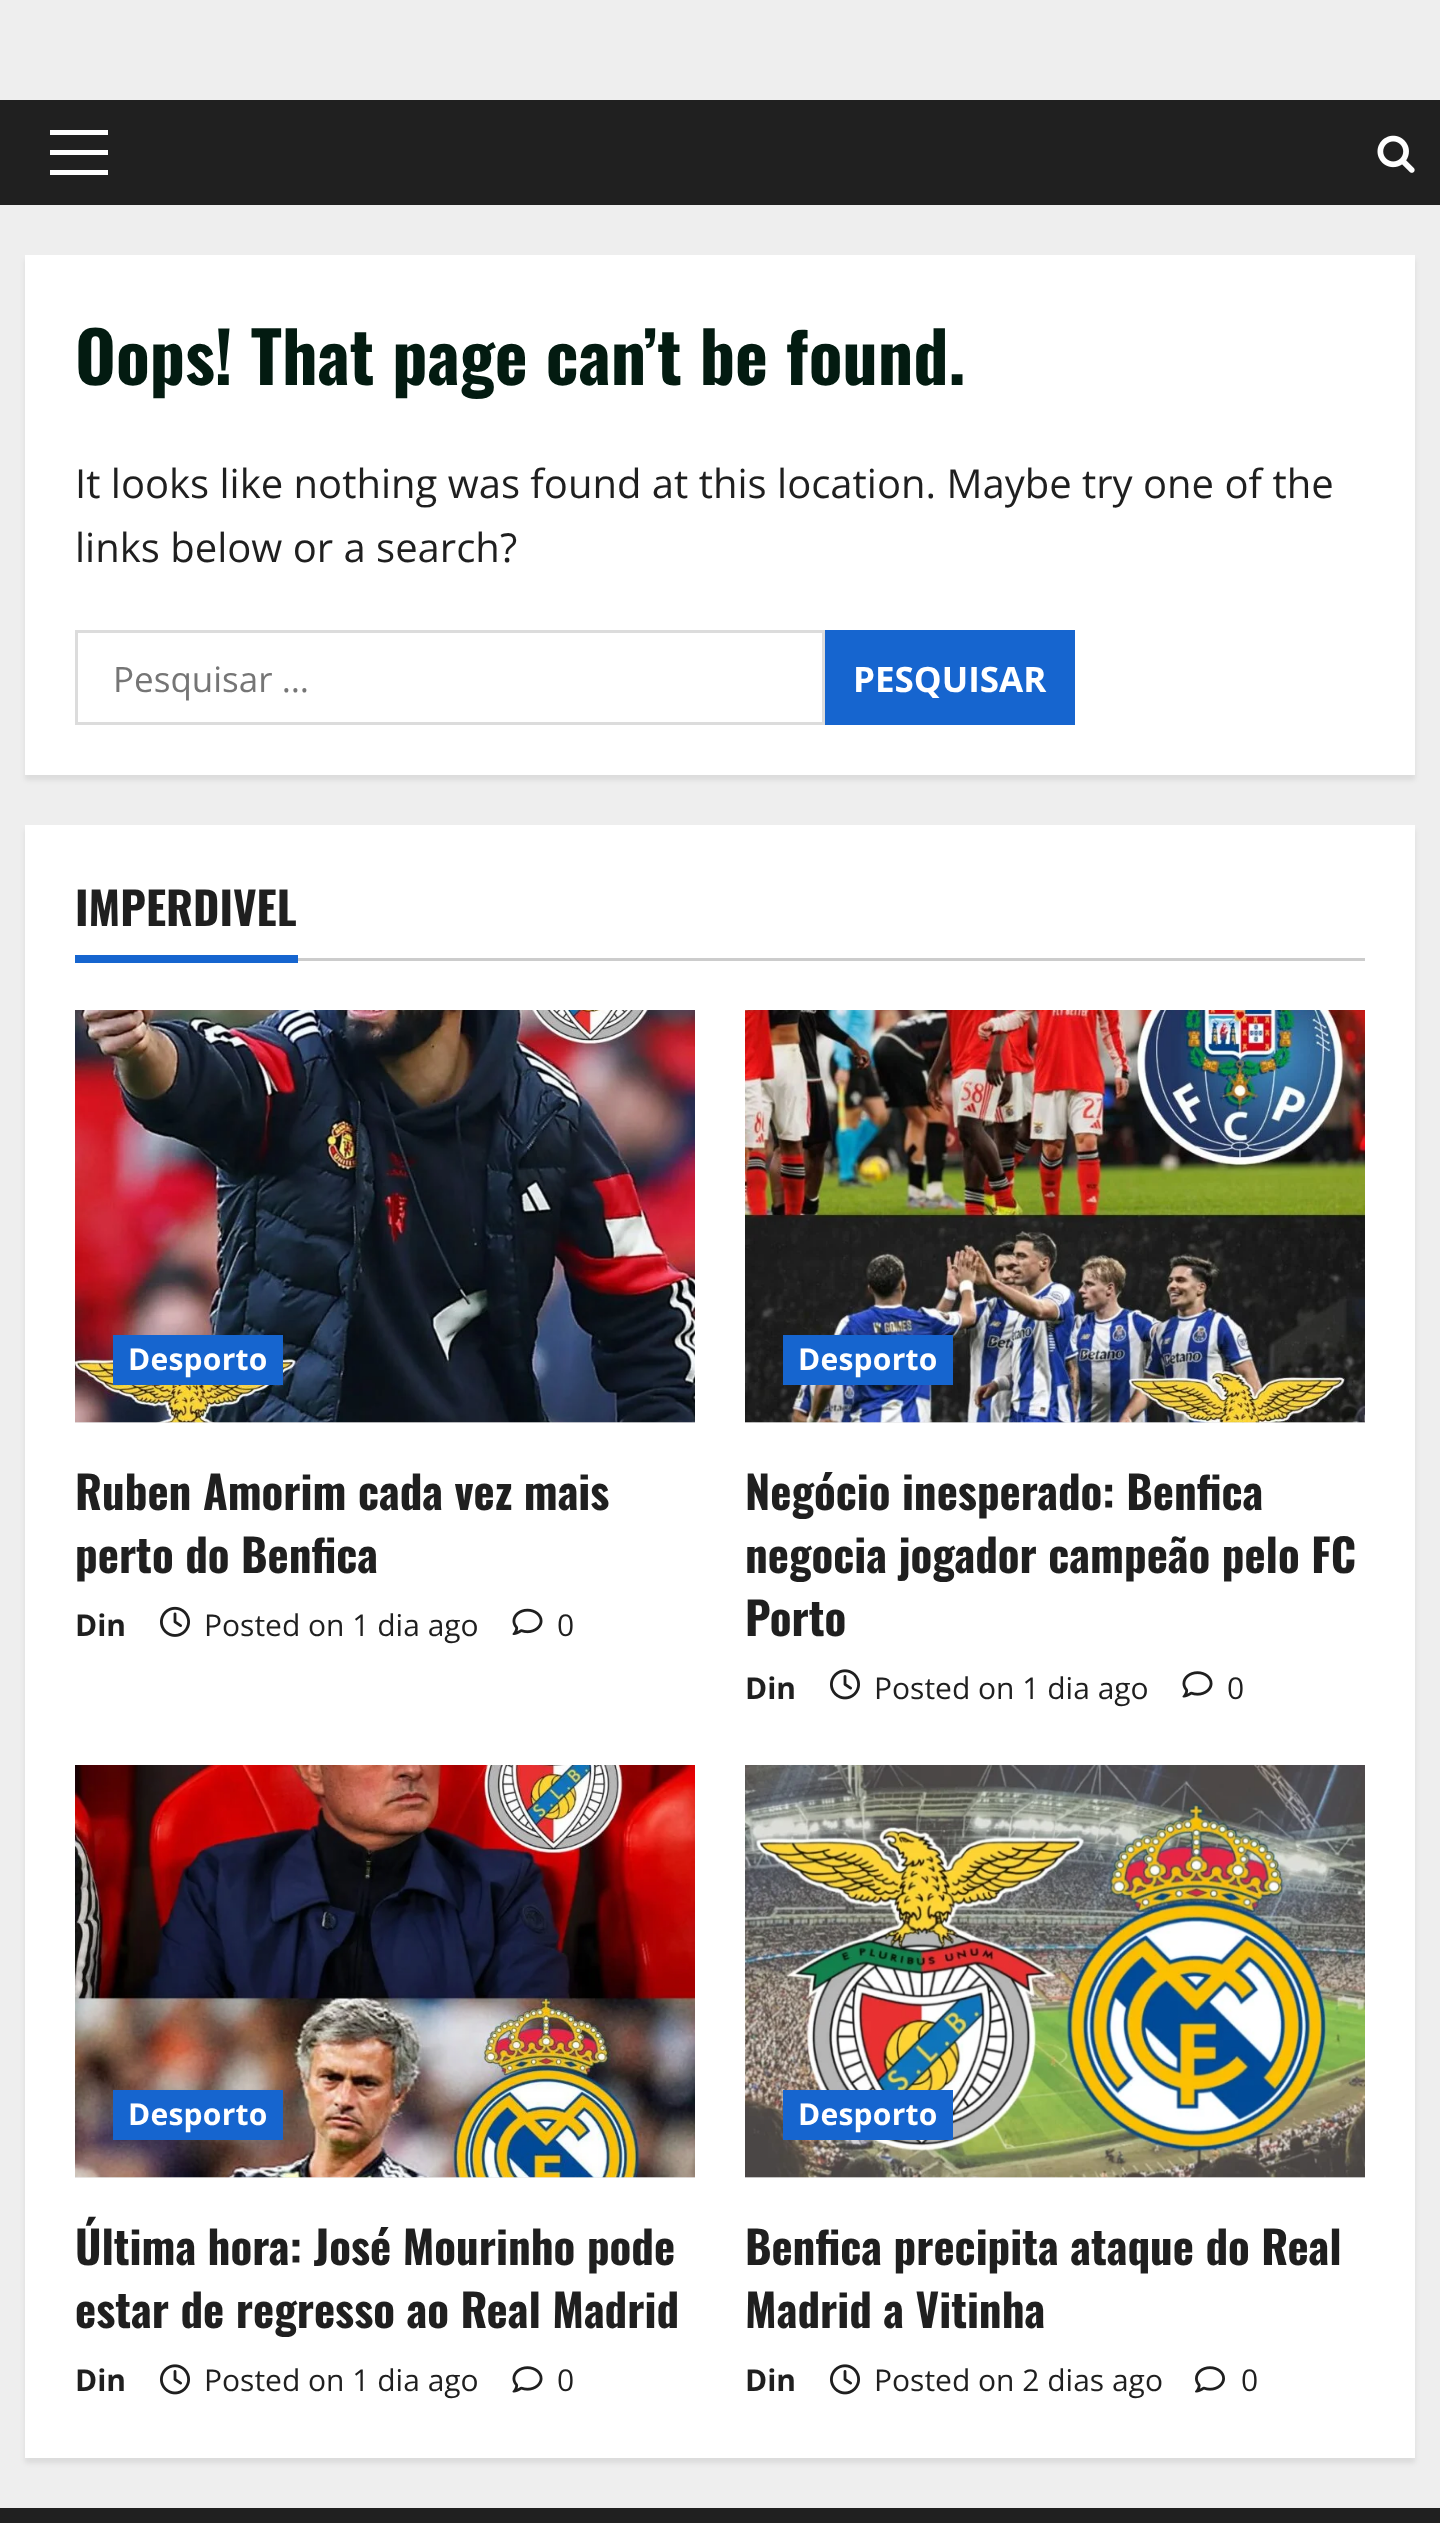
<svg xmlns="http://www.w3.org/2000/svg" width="1440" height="2523">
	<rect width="100%" height="100%" fill="#EEEEEE" />
	<rect x="0" y="100" width="1440" height="105" fill="#202020" />
	<rect x="50" y="150" width="58" height="5" fill="#FFFFFF" />
	<rect x="50" y="130" width="58" height="5" fill="#FFFFFF" />
	<rect x="50" y="170" width="58" height="5" fill="#FFFFFF" />
	<image x="1377" y="135" width="38" height="38" href="assets/img1.png" />
	<rect x="25" y="260" width="1390" height="520" fill="#000000" fill-opacity="0.08" filter="blur(2.5px)" />
	<rect x="25" y="255" width="1390" height="520" fill="#FFFFFF" />
	<text x="75" y="385" font-family="Oswald" font-size="70" font-weight="700" fill="#031B11">Oops! That page can’t be found.</text>
	<g font-family="Open Sans" font-size="40" fill="#1F1F1F">
		<text x="75" y="498">It looks like nothing was found at this location. Maybe try one of the</text>
		<text x="75" y="562">links below or a search?</text>
	</g>
	<rect x="76.5" y="631.5" width="747" height="92" fill="none" stroke="#DCDCDC" stroke-width="3" />
	<text x="113" y="692" font-family="Open Sans" font-size="35" fill="#757575">Pesquisar …</text>
	<rect x="825" y="630" width="250" height="95" fill="#1665CF" />
	<text x="853" y="692" font-family="Open Sans" font-size="35" font-weight="700" fill="#FFFFFF">PESQUISAR</text>
	<rect x="25" y="830" width="1390" height="1633" fill="#000000" fill-opacity="0.08" filter="blur(2.5px)" />
	<rect x="25" y="825" width="1390" height="1633" fill="#FFFFFF" />
	<rect x="298" y="958" width="1067" height="3" fill="#CCCCCC" />
	<text x="75" y="926" font-family="Oswald" font-size="45" font-weight="700" fill="#1F1F1F">IMPERDIVEL</text>
	<rect x="75" y="955" width="223" height="8" fill="#1665CF" />
	<rect x="75" y="1422" width="620" height="1" fill="#ECECEC" />
	<image x="75" y="1010" width="620" height="413" href="assets/img2.png" />
	<rect x="113" y="1335" width="170" height="50" fill="#1665CF" />
	<text x="128" y="1370" font-family="Open Sans" font-size="30" font-weight="700" letter-spacing="0.25" fill="#FFFFFF">Desporto</text>
	<g font-family="Oswald" font-size="45" font-weight="700" fill="#1F1F1F">
		<text x="75" y="1510">Ruben Amorim cada vez mais</text>
		<text x="75" y="1573">perto do Benfica</text>
	</g>
	<text x="75" y="1636" font-family="Open Sans" font-size="30" font-weight="700" fill="#1F1F1F">Din</text>
	<image x="160" y="1606" width="30" height="31" href="assets/img3.png" />
	<text x="204" y="1636" font-family="Open Sans" font-size="30" fill="#1F1F1F">Posted on 1 dia ago</text>
	<image x="512" y="1608" width="31" height="27" href="assets/img4.png" />
	<text x="557" y="1636" font-family="Open Sans" font-size="30" fill="#1F1F1F">0</text>
	<rect x="745" y="1422" width="620" height="1" fill="#ECECEC" />
	<image x="745" y="1010" width="620" height="413" href="assets/img5.png" />
	<rect x="783" y="1335" width="170" height="50" fill="#1665CF" />
	<text x="798" y="1370" font-family="Open Sans" font-size="30" font-weight="700" letter-spacing="0.25" fill="#FFFFFF">Desporto</text>
	<g font-family="Oswald" font-size="45" font-weight="700" fill="#1F1F1F">
		<text x="745" y="1510">Negócio inesperado: Benfica</text>
		<text x="745" y="1573">negocia jogador campeão pelo FC</text>
		<text x="745" y="1636">Porto</text>
	</g>
	<text x="745" y="1699" font-family="Open Sans" font-size="30" font-weight="700" fill="#1F1F1F">Din</text>
	<image x="830" y="1669" width="30" height="31" href="assets/img6.png" />
	<text x="874" y="1699" font-family="Open Sans" font-size="30" fill="#1F1F1F">Posted on 1 dia ago</text>
	<image x="1182" y="1671" width="31" height="27" href="assets/img7.png" />
	<text x="1227" y="1699" font-family="Open Sans" font-size="30" fill="#1F1F1F">0</text>
	<rect x="75" y="2177" width="620" height="1" fill="#ECECEC" />
	<image x="75" y="1765" width="620" height="413" href="assets/img8.png" />
	<rect x="113" y="2090" width="170" height="50" fill="#1665CF" />
	<text x="128" y="2125" font-family="Open Sans" font-size="30" font-weight="700" letter-spacing="0.25" fill="#FFFFFF">Desporto</text>
	<g font-family="Oswald" font-size="45" font-weight="700" fill="#1F1F1F">
		<text x="75" y="2265">Última hora: José Mourinho pode</text>
		<text x="75" y="2328">estar de regresso ao Real Madrid</text>
	</g>
	<text x="75" y="2391" font-family="Open Sans" font-size="30" font-weight="700" fill="#1F1F1F">Din</text>
	<image x="160" y="2364" width="30" height="31" href="assets/img6.png" />
	<text x="204" y="2391" font-family="Open Sans" font-size="30" fill="#1F1F1F">Posted on 1 dia ago</text>
	<image x="512" y="2366" width="31" height="27" href="assets/img7.png" />
	<text x="557" y="2391" font-family="Open Sans" font-size="30" fill="#1F1F1F">0</text>
	<rect x="745" y="2177" width="620" height="1" fill="#ECECEC" />
	<image x="745" y="1765" width="620" height="413" href="assets/img9.png" />
	<rect x="783" y="2090" width="170" height="50" fill="#1665CF" />
	<text x="798" y="2125" font-family="Open Sans" font-size="30" font-weight="700" letter-spacing="0.25" fill="#FFFFFF">Desporto</text>
	<g font-family="Oswald" font-size="45" font-weight="700" fill="#1F1F1F">
		<text x="745" y="2265">Benfica precipita ataque do Real</text>
		<text x="745" y="2328">Madrid a Vitinha</text>
	</g>
	<text x="745" y="2391" font-family="Open Sans" font-size="30" font-weight="700" fill="#1F1F1F">Din</text>
	<image x="830" y="2364" width="30" height="31" href="assets/img6.png" />
	<text x="874" y="2391" font-family="Open Sans" font-size="30" fill="#1F1F1F">Posted on 2 dias ago</text>
	<image x="1195" y="2366" width="30" height="27" href="assets/img10.png" />
	<text x="1241" y="2391" font-family="Open Sans" font-size="30" fill="#1F1F1F">0</text>
	<rect x="0" y="2508" width="1440" height="15" fill="#202020" />
</svg>
